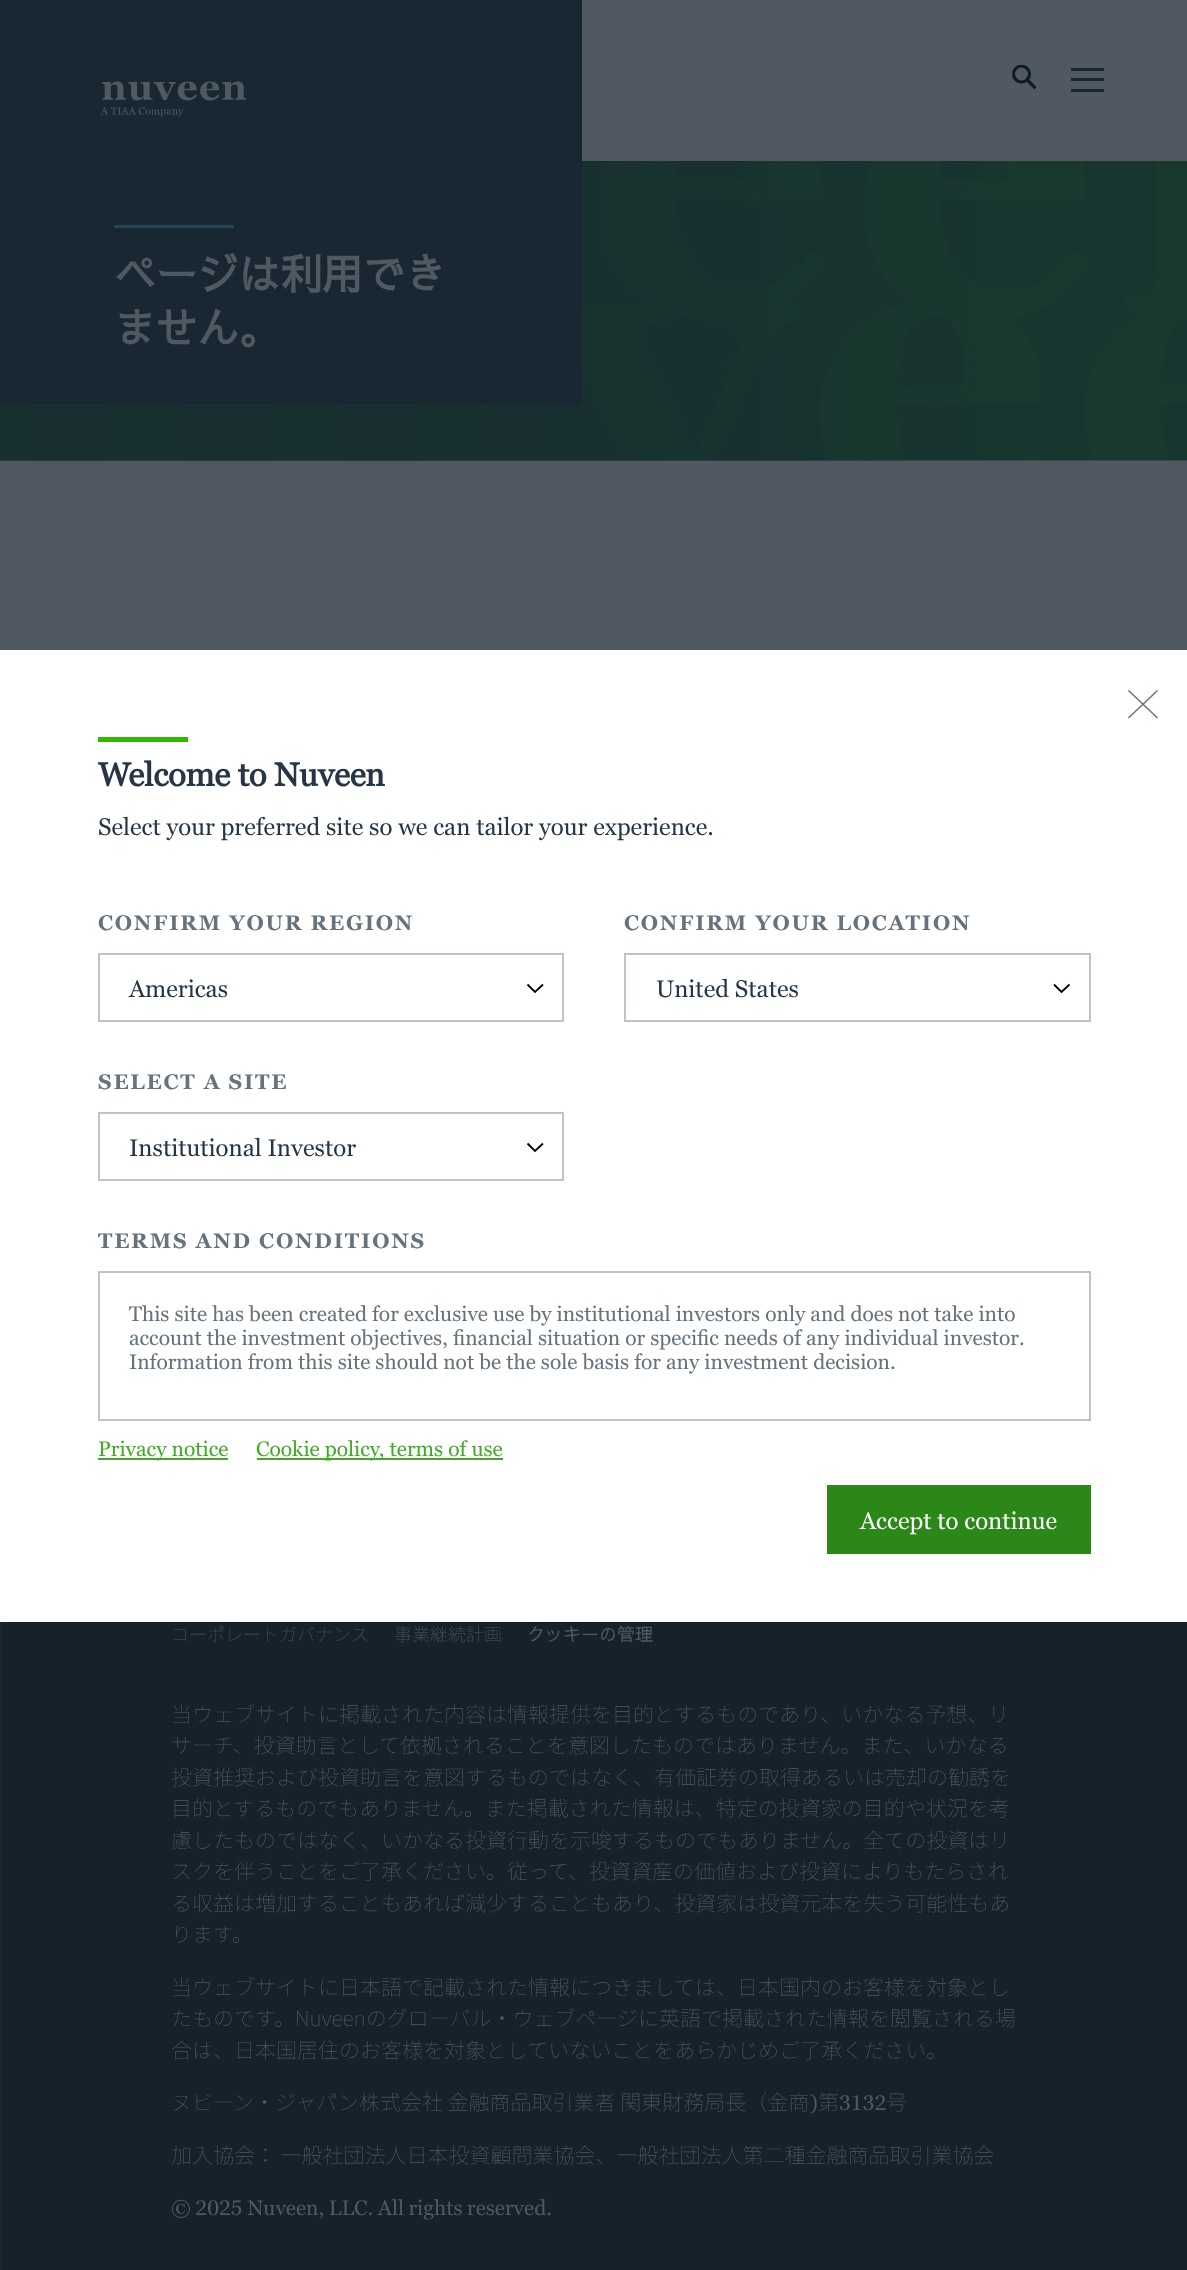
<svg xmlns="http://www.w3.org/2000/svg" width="1187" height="2270">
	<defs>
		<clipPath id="clip1"><rect x="1011" y="65" width="27" height="25" /></clipPath>
		<linearGradient id="g1" gradientUnits="userSpaceOnUse" x1="0" y1="311" x2="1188" y2="310"><stop offset="0.39" stop-color="#192733" stop-opacity="0.5" /><stop offset="0.91" stop-color="#192733" stop-opacity="0" /></linearGradient>
	</defs>
	<rect width="100%" height="100%" fill="#505961" />
	<rect x="0" y="0" width="582" height="161" fill="#192733" />
	<image x="100" y="81" width="147" height="36" href="assets/img1.png" />
	<g clip-path="url(#clip1)">
		<circle cx="1021.5" cy="74" r="8" fill="none" stroke="#101A21" stroke-width="3" />
	</g>
	<path d="M1028 78.5L1036.5 87L1034.5 89.5L1026 81Z" fill="#101A21" fill-rule="evenodd" />
	<rect x="1071" y="68" width="33" height="3" fill="#192733" />
	<rect x="1071" y="78" width="33" height="3" fill="#192733" />
	<rect x="1071" y="89" width="33" height="3" fill="#192733" />
	<image x="0" y="161" width="1187" height="300" href="assets/img2.png" />
	<rect x="0" y="161" width="982" height="300" fill="url(#g1)" />
	<rect x="0" y="161" width="582" height="243" fill="#192733" />
	<rect x="114" y="225" width="120" height="3" fill="#234655" />
	<g font-family="Sawarabi Gothic" font-size="42" font-weight="700" letter-spacing="-0.5" fill="#505961">
		<text x="114" y="290">ページは利用でき</text>
		<text x="114" y="344">ません。</text>
	</g>
	<rect x="2" y="1622" width="1185" height="648" fill="#15222C" />
	<rect x="1" y="1564" width="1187" height="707" fill="none" stroke="#192733" stroke-width="2" />
	<g font-family="Noto Sans JP" font-size="18" font-weight="100" fill="#505961">
		<text x="171" y="1641">コーポレートガバナンス</text>
		<text x="394" y="1641">事業継続計画</text>
	</g>
	<text x="527" y="1641" font-family="Sawarabi Gothic" font-size="18" fill="#505961">クッキーの管理</text>
	<g font-family="Noto Sans JP" font-size="21" font-weight="100" fill="#505961">
		<text x="171" y="1722">当ウェブサイトに掲載された内容は情報提供を目的とするものであり、いかなる予想、リ</text>
		<text x="171" y="1753">サーチ、投資助言として依拠されることを意図したものではありません。また、いかなる</text>
		<text x="171" y="1785">投資推奨および投資助言を意図するものではなく、有価証券の取得あるいは売却の勧誘を</text>
		<text x="171" y="1816">目的とするものでもありません。また掲載された情報は、特定の投資家の目的や状況を考</text>
		<text x="171" y="1848">慮したものではなく、いかなる投資行動を示唆するものでもありません。全ての投資はリ</text>
		<text x="171" y="1879">スクを伴うことをご了承ください。従って、投資資産の価値および投資によりもたらされ</text>
		<text x="171" y="1911">る収益は増加することもあれば減少することもあり、投資家は投資元本を失う可能性もあ</text>
		<text x="171" y="1942">ります。</text>
		<text x="171" y="1995">当ウェブサイトに日本語で記載された情報につきましては、日本国内のお客様を対象とし</text>
		<text x="171" y="2026">たものです。Nuveenのグローバル・ウェブページに英語で掲載された情報を閲覧される場</text>
		<text x="171" y="2058">合は、日本国居住のお客様を対象としていないことをあらかじめご了承ください。</text>
		<text x="171" y="2110">ヌビーン・</text>
		<text x="275" y="2110">ジャパン株式会社 金融商品取引業者 関東財務局長（金商</text>
	</g>
	<text x="810" y="2110" font-family="Georgia" font-size="21" fill="#505961">)</text>
	<text x="818" y="2110" font-family="Noto Sans JP" font-size="21" font-weight="100" fill="#505961">第</text>
	<text x="839" y="2110" font-family="Georgia" font-size="21" fill="#505961">3132</text>
	<g font-family="Noto Sans JP" font-size="21" font-weight="100" fill="#505961">
		<text x="886" y="2110">号</text>
		<text x="171" y="2163">加入協会： 一般社団法人日本投資顧問業協会、一般社団法人第二種金融商品取引業協会</text>
	</g>
	<text x="171" y="2215" word-spacing="-0.5" font-family="Georgia" font-size="21" fill="#505961">© 2025 Nuveen, LLC. All rights reserved.</text>
	<rect x="0" y="650" width="1187" height="972" fill="#FFFFFF" />
	<path d="M1129 691L1157 717.5M1157 691L1129 717.5" fill="none" stroke="#66737D" stroke-width="1.5" stroke-linecap="square" />
	<rect x="98" y="737" width="90" height="5" fill="#31B700" />
	<text x="98" y="786" font-family="'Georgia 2'" font-size="33" font-weight="700" letter-spacing="-0.25" fill="#253746">Welcome to Nuveen</text>
	<text x="98" y="835" font-family="Georgia" font-size="24" fill="#253746">Select your preferred site so we can tailor your experience.</text>
	<text x="98" y="930" font-family="Georgia" font-size="21" font-weight="700" letter-spacing="1.8" fill="#66737D">CONFIRM YOUR REGION</text>
	<path d="M543 984.5L535 992L527.5 984.5" fill="none" stroke="#000000" stroke-width="1.8" />
	<rect x="99" y="954" width="464" height="67" fill="none" stroke="#BDC3C7" stroke-width="2" />
	<text x="129" y="997" font-family="Georgia" font-size="24" fill="#253746">Americas</text>
	<text x="624" y="930" font-family="Georgia" font-size="21" font-weight="700" letter-spacing="1.8" fill="#66737D">CONFIRM YOUR LOCATION</text>
	<path d="M1069.5 984.5L1061.5 992L1054 984.5" fill="none" stroke="#000000" stroke-width="1.8" />
	<rect x="625" y="954" width="465" height="67" fill="none" stroke="#BDC3C7" stroke-width="2" />
	<text x="656" y="997" font-family="Georgia" font-size="24" fill="#253746">United States</text>
	<text x="98" y="1089" font-family="Georgia" font-size="21" font-weight="700" letter-spacing="1.8" fill="#66737D">SELECT A SITE</text>
	<path d="M543 1143.5L535 1151L527.5 1143.5" fill="none" stroke="#000000" stroke-width="1.8" />
	<rect x="99" y="1113" width="464" height="67" fill="none" stroke="#BDC3C7" stroke-width="2" />
	<text x="129" y="1156" font-family="Georgia" font-size="24" fill="#253746">Institutional Investor</text>
	<text x="98" y="1248" font-family="Georgia" font-size="21" font-weight="700" letter-spacing="1.8" fill="#66737D">TERMS AND CONDITIONS</text>
	<rect x="99" y="1272" width="991" height="148" fill="none" stroke="#BDC3C7" stroke-width="2" />
	<g font-family="Georgia" font-size="21" fill="#66737D">
		<text x="129" y="1321">This site has been created for exclusive use by institutional investors only and does not take into</text>
		<text x="129" y="1345">account the investment objectives, financial situation or specific needs of any individual investor.</text>
		<text x="129" y="1369">Information from this site should not be the sole basis for any investment decision.</text>
	</g>
	<rect x="98" y="1458" width="130" height="2" fill="#45A929" />
	<text x="98" y="1456" font-family="Georgia" font-size="21" fill="#45A929">Privacy notice</text>
	<rect x="257" y="1458" width="246" height="2" fill="#45A929" />
	<text x="256" y="1456" font-family="Georgia" font-size="21" fill="#45A929">Cookie policy, terms of use</text>
	<rect x="827" y="1485" width="264" height="69" fill="#2B8818" />
	<text x="860" y="1529" font-family="Georgia" font-size="24" fill="#FFFFFF">Accept to continue</text>
</svg>
